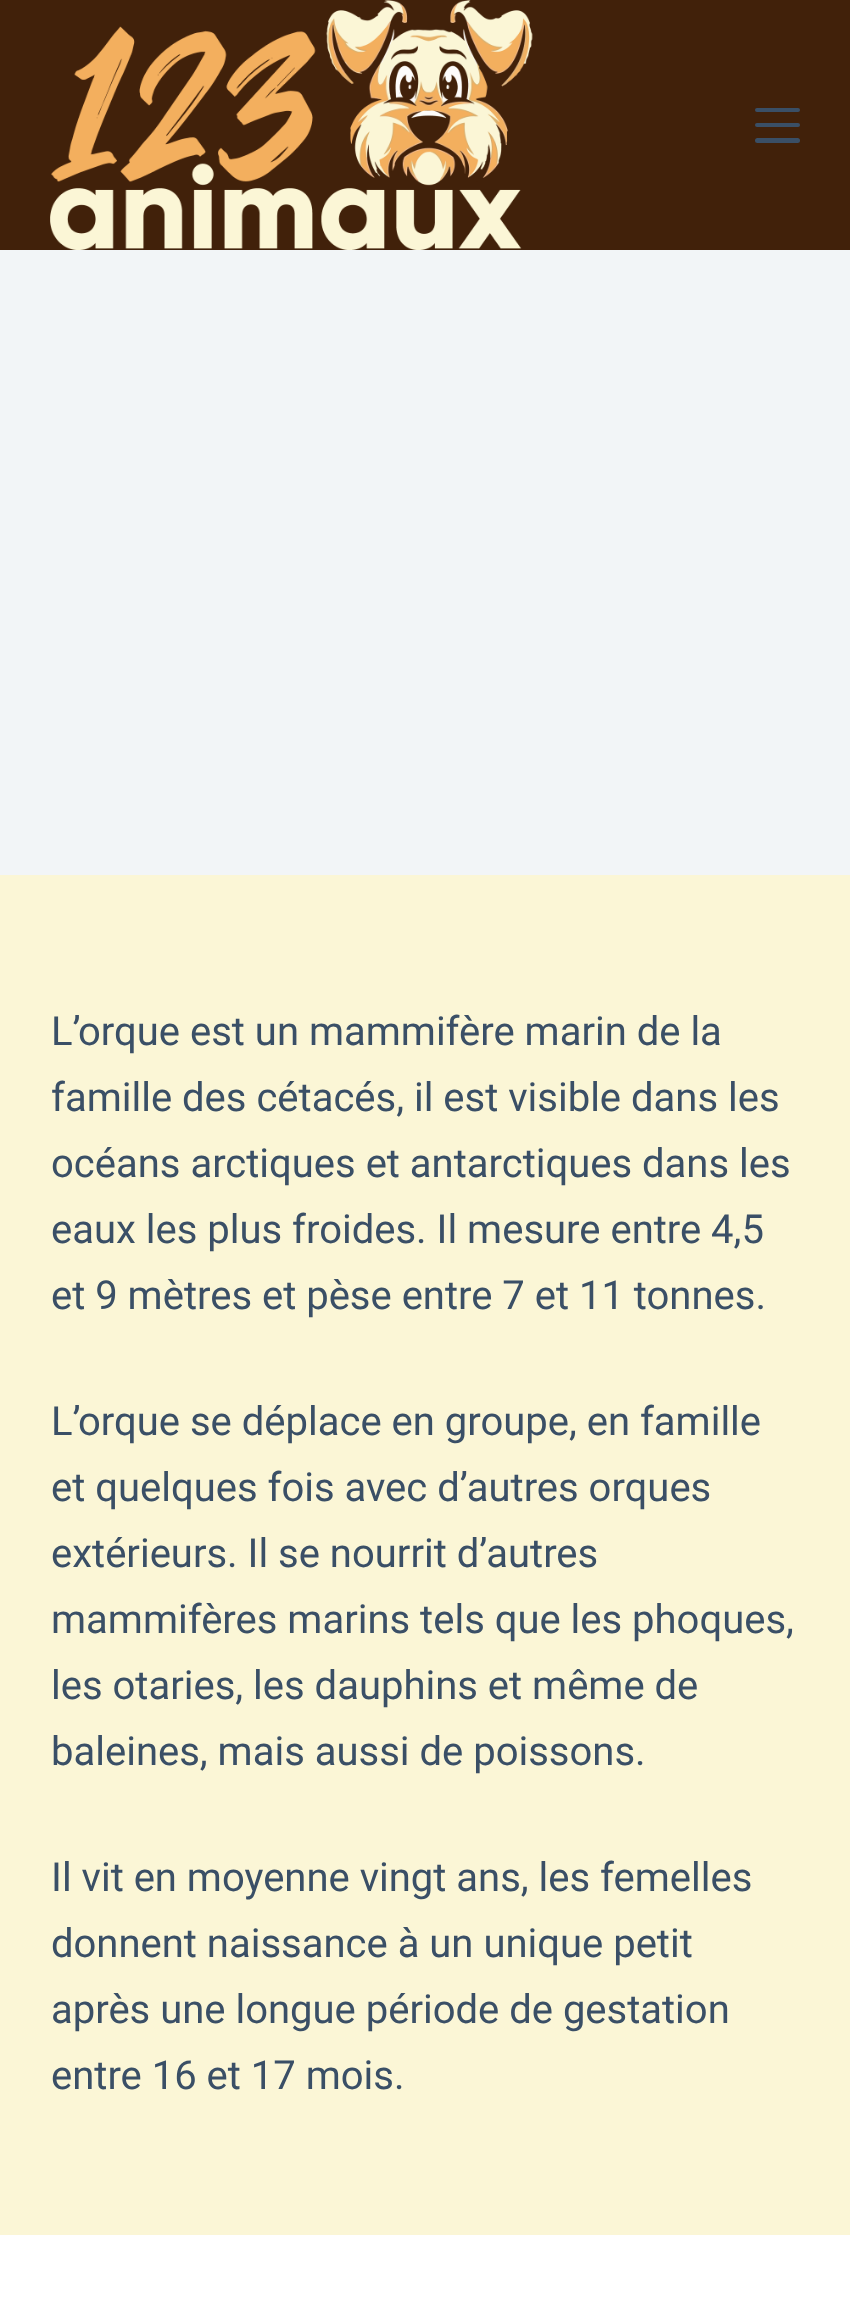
<svg xmlns="http://www.w3.org/2000/svg" width="850" height="2318">
	<rect width="100%" height="100%" fill="#FBF6D6" />
	<rect x="0" y="0" width="850" height="250" fill="#41210A" />
	<image x="50" y="0" width="483" height="250" href="assets/img1.png" />
	<rect x="755" y="108" width="45" height="4" rx="2" fill="#3A4F66" />
	<rect x="755" y="123" width="45" height="4" rx="2" fill="#3A4F66" />
	<rect x="755" y="138" width="45" height="5" rx="2.5" fill="#3A4F66" />
	<rect x="0" y="250" width="850" height="625" fill="#F2F5F7" />
	<g font-family="Roboto" font-size="40" fill="#3A4F66">
		<text x="51" y="1045">L’orque est un mammifère marin de la</text>
		<text x="51" y="1111">famille des cétacés, il est visible dans les</text>
		<text x="51" y="1177">océans arctiques et antarctiques dans les</text>
		<text x="51" y="1243">eaux les plus froides. Il mesure entre 4,5</text>
		<text x="51" y="1309">et 9 mètres et pèse entre 7 et 11 tonnes.</text>
		<text x="51" y="1435">L’orque se déplace en groupe, en famille</text>
		<text x="51" y="1501">et quelques fois avec d’autres orques</text>
		<text x="51" y="1567">extérieurs. Il se nourrit d’autres</text>
		<text x="51" y="1633">mammifères marins tels que les phoques,</text>
		<text x="51" y="1699">les otaries, les dauphins et même de</text>
		<text x="51" y="1765">baleines, mais aussi de poissons.</text>
		<text x="51" y="1891">Il vit en moyenne vingt ans, les femelles</text>
		<text x="51" y="1957">donnent naissance à un unique petit</text>
		<text x="51" y="2023">après une longue période de gestation</text>
		<text x="51" y="2089">entre 16 et 17 mois.</text>
	</g>
	<rect x="0" y="2235" width="850" height="83" fill="#FFFFFF" />
</svg>
